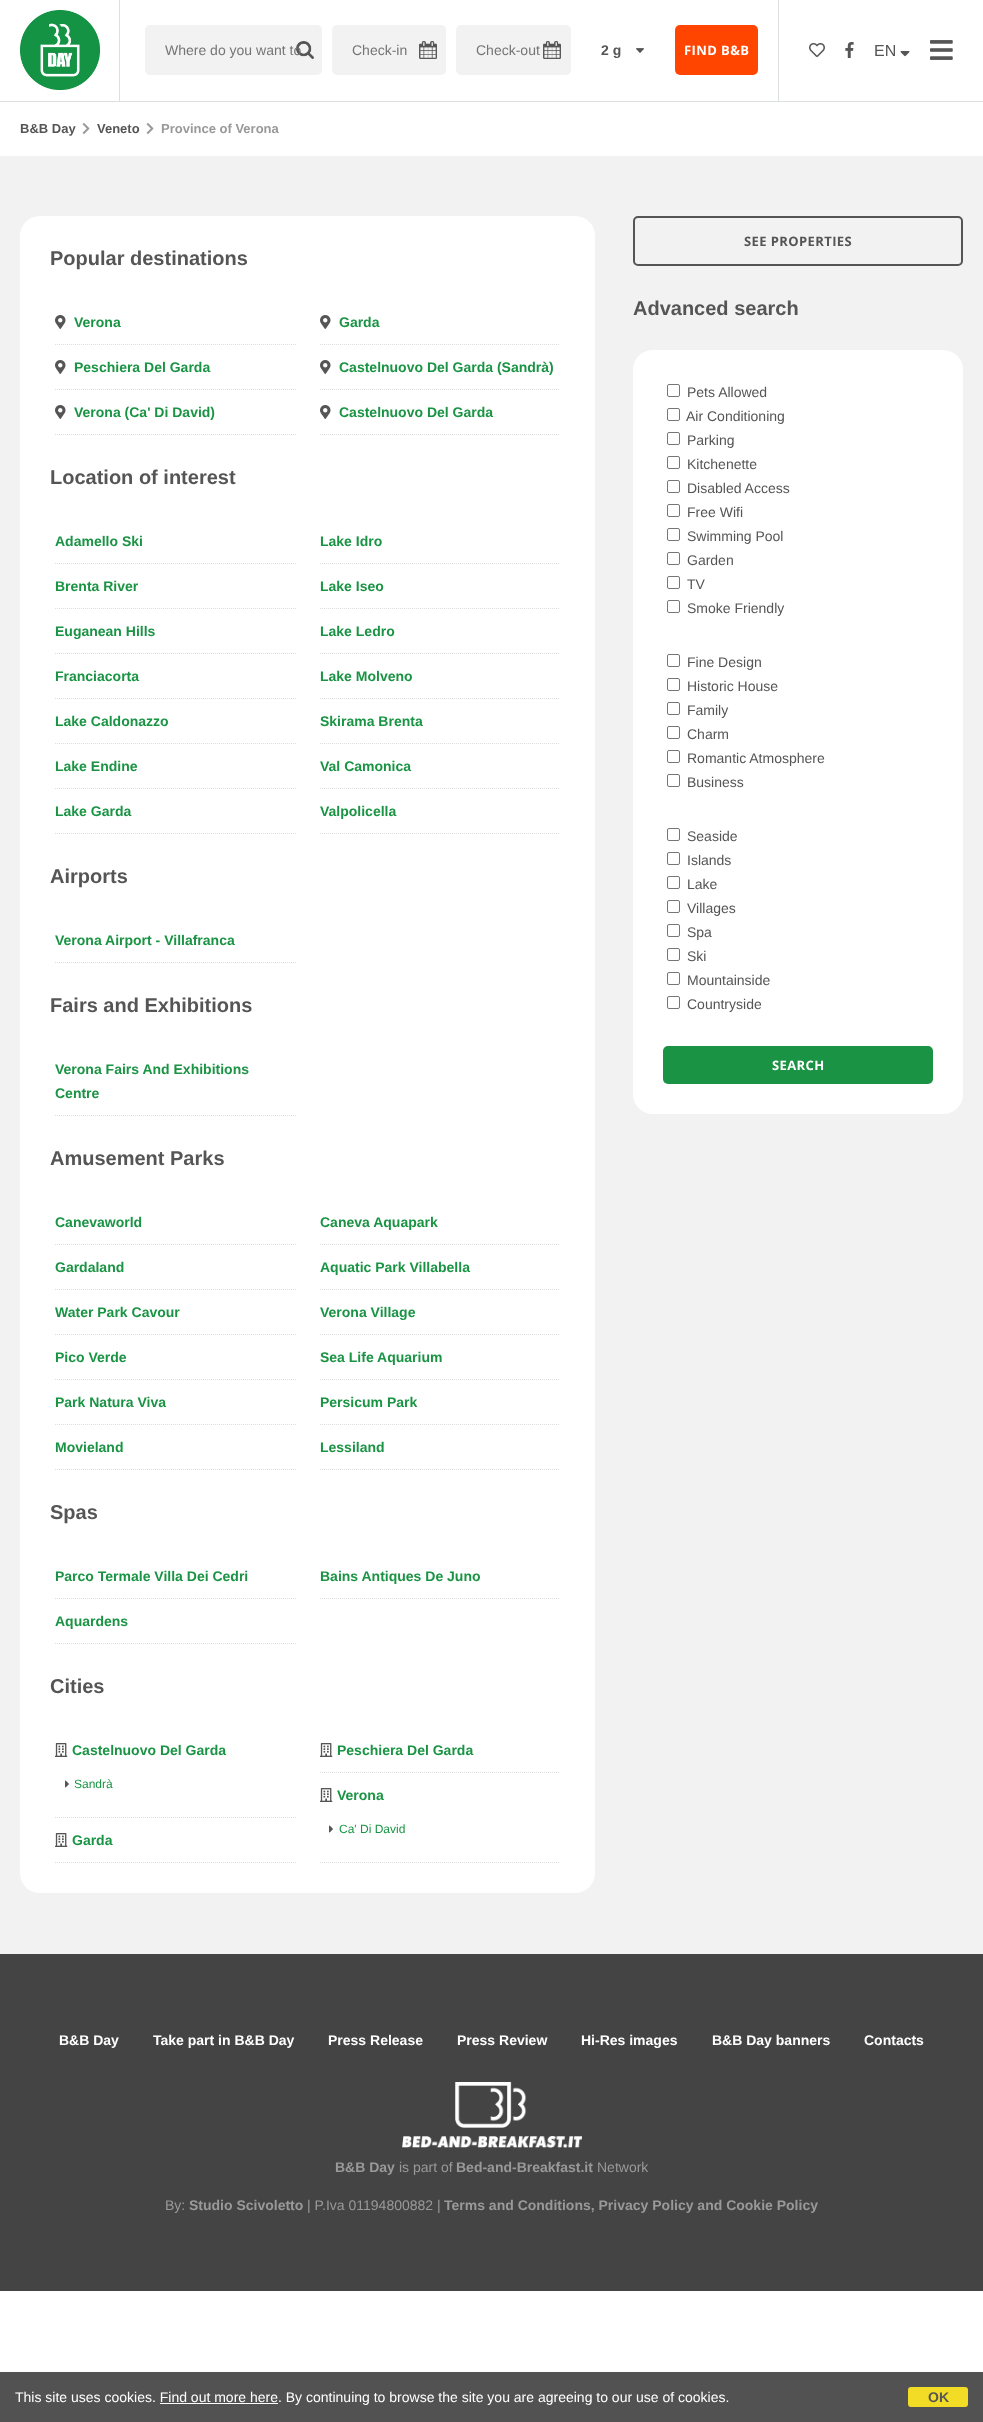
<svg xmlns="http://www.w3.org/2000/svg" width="983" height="2422">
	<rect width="100%" height="100%" fill="#FFFFFF" />
	<rect x="0" y="101" width="983" height="1" fill="#DCE0E0" />
	<rect x="119" y="0" width="1" height="102" fill="#DCE0E0" />
	<image x="20" y="10" width="80" height="80" href="assets/img1.png" />
	<rect x="145" y="25" width="177" height="50" rx="5" fill="#F2F2F2" />
	<image x="296" y="41" width="18" height="18" href="assets/img2.png" />
	<text x="165" y="55" font-family="Liberation Sans" font-size="14" fill="#757575">Where do you want to</text>
	<rect x="332" y="25" width="114" height="50" rx="5" fill="#F2F2F2" />
	<image x="419" y="41" width="18" height="18" href="assets/img3.png" />
	<text x="352" y="55" font-family="Liberation Sans" font-size="14" fill="#757575">Check-in</text>
	<rect x="456" y="25" width="115" height="50" rx="5" fill="#F2F2F2" />
	<image x="543" y="41" width="18" height="18" href="assets/img3.png" />
	<text x="476" y="55" font-family="Liberation Sans" font-size="14" fill="#757575">Check-out</text>
	<image x="636" y="48" width="8" height="5" href="assets/img4.png" />
	<text x="601" y="55" font-family="Liberation Sans" font-size="14" font-weight="700" fill="#555555">2 g</text>
	<rect x="675" y="25" width="83" height="50" rx="5" fill="#FF4500" />
	<text x="684" y="55" font-family="Open Sans" font-size="13" font-weight="700" letter-spacing="0.4" fill="#FFFFFF">FIND B&amp;B</text>
	<rect x="778" y="0" width="1" height="102" fill="#DCE0E0" />
	<image x="809" y="43" width="16" height="14" href="assets/img5.png" />
	<image x="845" y="42" width="9" height="16" href="assets/img6.png" />
	<text x="874" y="56" font-family="Liberation Sans" font-size="16" fill="#555555">EN</text>
	<image x="900" y="51" width="10" height="6" href="assets/img7.png" />
	<image x="930" y="40" width="23" height="20" href="assets/img8.png" />
	<text x="20" y="133" font-family="Liberation Sans" font-size="13" font-weight="700" fill="#555555">B&amp;B Day</text>
	<image x="82" y="123" width="8" height="11" href="assets/img9.png" />
	<text x="97" y="133" font-family="Liberation Sans" font-size="13" font-weight="700" fill="#555555">Veneto</text>
	<image x="146" y="123" width="8" height="11" href="assets/img9.png" />
	<text x="161" y="133" font-family="Liberation Sans" font-size="13" font-weight="700" fill="#999999">Province of Verona</text>
	<rect x="0" y="156" width="983" height="1798" fill="#F2F2F2" />
	<rect x="20" y="216" width="575" height="1677" rx="20" fill="#FFFFFF" />
	<text x="50" y="265" font-family="Liberation Sans" font-size="20" font-weight="700" fill="#555555">Popular destinations</text>
	<path d="M55 344.5H296" fill="none" stroke="#DFDFDF" stroke-dasharray="1 1" />
	<image x="55" y="315" width="11" height="14" href="assets/img10.png" />
	<text x="74" y="327" font-family="Liberation Sans" font-size="14" font-weight="700" fill="#1A9444">Verona</text>
	<path d="M320 344.5H560" fill="none" stroke="#DFDFDF" stroke-dasharray="1 1" />
	<image x="320" y="315" width="11" height="14" href="assets/img10.png" />
	<text x="339" y="327" font-family="Liberation Sans" font-size="14" font-weight="700" fill="#1A9444">Garda</text>
	<path d="M55 389.5H296" fill="none" stroke="#DFDFDF" stroke-dasharray="1 1" />
	<image x="55" y="360" width="11" height="14" href="assets/img10.png" />
	<text x="74" y="372" font-family="Liberation Sans" font-size="14" font-weight="700" fill="#1A9444">Peschiera Del Garda</text>
	<path d="M320 389.5H560" fill="none" stroke="#DFDFDF" stroke-dasharray="1 1" />
	<image x="320" y="360" width="11" height="14" href="assets/img10.png" />
	<text x="339" y="372" font-family="Liberation Sans" font-size="14" font-weight="700" fill="#1A9444">Castelnuovo Del Garda (Sandrà)</text>
	<path d="M55 434.5H296" fill="none" stroke="#DFDFDF" stroke-dasharray="1 1" />
	<image x="55" y="405" width="11" height="14" href="assets/img10.png" />
	<text x="74" y="417" font-family="Liberation Sans" font-size="14" font-weight="700" fill="#1A9444">Verona (Ca' Di David)</text>
	<path d="M320 434.5H560" fill="none" stroke="#DFDFDF" stroke-dasharray="1 1" />
	<image x="320" y="405" width="11" height="14" href="assets/img10.png" />
	<text x="339" y="417" font-family="Liberation Sans" font-size="14" font-weight="700" fill="#1A9444">Castelnuovo Del Garda</text>
	<text x="50" y="484" font-family="Liberation Sans" font-size="20" font-weight="700" fill="#555555">Location of interest</text>
	<path d="M55 563.5H296" fill="none" stroke="#DFDFDF" stroke-dasharray="1 1" />
	<text x="55" y="546" font-family="Liberation Sans" font-size="14" font-weight="700" fill="#1A9444">Adamello Ski</text>
	<path d="M320 563.5H560" fill="none" stroke="#DFDFDF" stroke-dasharray="1 1" />
	<text x="320" y="546" font-family="Liberation Sans" font-size="14" font-weight="700" fill="#1A9444">Lake Idro</text>
	<path d="M55 608.5H296" fill="none" stroke="#DFDFDF" stroke-dasharray="1 1" />
	<text x="55" y="591" font-family="Liberation Sans" font-size="14" font-weight="700" fill="#1A9444">Brenta River</text>
	<path d="M320 608.5H560" fill="none" stroke="#DFDFDF" stroke-dasharray="1 1" />
	<text x="320" y="591" font-family="Liberation Sans" font-size="14" font-weight="700" fill="#1A9444">Lake Iseo</text>
	<path d="M55 653.5H296" fill="none" stroke="#DFDFDF" stroke-dasharray="1 1" />
	<text x="55" y="636" font-family="Liberation Sans" font-size="14" font-weight="700" fill="#1A9444">Euganean Hills</text>
	<path d="M320 653.5H560" fill="none" stroke="#DFDFDF" stroke-dasharray="1 1" />
	<text x="320" y="636" font-family="Liberation Sans" font-size="14" font-weight="700" fill="#1A9444">Lake Ledro</text>
	<path d="M55 698.5H296" fill="none" stroke="#DFDFDF" stroke-dasharray="1 1" />
	<text x="55" y="681" font-family="Liberation Sans" font-size="14" font-weight="700" fill="#1A9444">Franciacorta</text>
	<path d="M320 698.5H560" fill="none" stroke="#DFDFDF" stroke-dasharray="1 1" />
	<text x="320" y="681" font-family="Liberation Sans" font-size="14" font-weight="700" fill="#1A9444">Lake Molveno</text>
	<path d="M55 743.5H296" fill="none" stroke="#DFDFDF" stroke-dasharray="1 1" />
	<text x="55" y="726" font-family="Liberation Sans" font-size="14" font-weight="700" fill="#1A9444">Lake Caldonazzo</text>
	<path d="M320 743.5H560" fill="none" stroke="#DFDFDF" stroke-dasharray="1 1" />
	<text x="320" y="726" font-family="Liberation Sans" font-size="14" font-weight="700" fill="#1A9444">Skirama Brenta</text>
	<path d="M55 788.5H296" fill="none" stroke="#DFDFDF" stroke-dasharray="1 1" />
	<text x="55" y="771" font-family="Liberation Sans" font-size="14" font-weight="700" fill="#1A9444">Lake Endine</text>
	<path d="M320 788.5H560" fill="none" stroke="#DFDFDF" stroke-dasharray="1 1" />
	<text x="320" y="771" font-family="Liberation Sans" font-size="14" font-weight="700" fill="#1A9444">Val Camonica</text>
	<path d="M55 833.5H296" fill="none" stroke="#DFDFDF" stroke-dasharray="1 1" />
	<text x="55" y="816" font-family="Liberation Sans" font-size="14" font-weight="700" fill="#1A9444">Lake Garda</text>
	<path d="M320 833.5H560" fill="none" stroke="#DFDFDF" stroke-dasharray="1 1" />
	<text x="320" y="816" font-family="Liberation Sans" font-size="14" font-weight="700" fill="#1A9444">Valpolicella</text>
	<text x="50" y="883" font-family="Liberation Sans" font-size="20" font-weight="700" fill="#555555">Airports</text>
	<path d="M55 962.5H296" fill="none" stroke="#DFDFDF" stroke-dasharray="1 1" />
	<text x="55" y="945" font-family="Liberation Sans" font-size="14" font-weight="700" fill="#1A9444">Verona Airport - Villafranca</text>
	<text x="50" y="1012" font-family="Liberation Sans" font-size="20" font-weight="700" fill="#555555">Fairs and Exhibitions</text>
	<path d="M55 1115.5H296" fill="none" stroke="#DFDFDF" stroke-dasharray="1 1" />
	<g font-family="Liberation Sans" font-size="14" font-weight="700" fill="#1A9444">
		<text x="55" y="1074">Verona Fairs And Exhibitions</text>
		<text x="55" y="1098">Centre</text>
	</g>
	<text x="50" y="1165" font-family="Liberation Sans" font-size="20" font-weight="700" fill="#555555">Amusement Parks</text>
	<path d="M55 1244.5H296" fill="none" stroke="#DFDFDF" stroke-dasharray="1 1" />
	<text x="55" y="1227" font-family="Liberation Sans" font-size="14" font-weight="700" fill="#1A9444">Canevaworld</text>
	<path d="M320 1244.5H560" fill="none" stroke="#DFDFDF" stroke-dasharray="1 1" />
	<text x="320" y="1227" font-family="Liberation Sans" font-size="14" font-weight="700" fill="#1A9444">Caneva Aquapark</text>
	<path d="M55 1289.5H296" fill="none" stroke="#DFDFDF" stroke-dasharray="1 1" />
	<text x="55" y="1272" font-family="Liberation Sans" font-size="14" font-weight="700" fill="#1A9444">Gardaland</text>
	<path d="M320 1289.5H560" fill="none" stroke="#DFDFDF" stroke-dasharray="1 1" />
	<text x="320" y="1272" font-family="Liberation Sans" font-size="14" font-weight="700" fill="#1A9444">Aquatic Park Villabella</text>
	<path d="M55 1334.5H296" fill="none" stroke="#DFDFDF" stroke-dasharray="1 1" />
	<text x="55" y="1317" font-family="Liberation Sans" font-size="14" font-weight="700" fill="#1A9444">Water Park Cavour</text>
	<path d="M320 1334.5H560" fill="none" stroke="#DFDFDF" stroke-dasharray="1 1" />
	<text x="320" y="1317" font-family="Liberation Sans" font-size="14" font-weight="700" fill="#1A9444">Verona Village</text>
	<path d="M55 1379.5H296" fill="none" stroke="#DFDFDF" stroke-dasharray="1 1" />
	<text x="55" y="1362" font-family="Liberation Sans" font-size="14" font-weight="700" fill="#1A9444">Pico Verde</text>
	<path d="M320 1379.5H560" fill="none" stroke="#DFDFDF" stroke-dasharray="1 1" />
	<text x="320" y="1362" font-family="Liberation Sans" font-size="14" font-weight="700" fill="#1A9444">Sea Life Aquarium</text>
	<path d="M55 1424.5H296" fill="none" stroke="#DFDFDF" stroke-dasharray="1 1" />
	<text x="55" y="1407" font-family="Liberation Sans" font-size="14" font-weight="700" fill="#1A9444">Park Natura Viva</text>
	<path d="M320 1424.5H560" fill="none" stroke="#DFDFDF" stroke-dasharray="1 1" />
	<text x="320" y="1407" font-family="Liberation Sans" font-size="14" font-weight="700" fill="#1A9444">Persicum Park</text>
	<path d="M55 1469.5H296" fill="none" stroke="#DFDFDF" stroke-dasharray="1 1" />
	<text x="55" y="1452" font-family="Liberation Sans" font-size="14" font-weight="700" fill="#1A9444">Movieland</text>
	<path d="M320 1469.5H560" fill="none" stroke="#DFDFDF" stroke-dasharray="1 1" />
	<text x="320" y="1452" font-family="Liberation Sans" font-size="14" font-weight="700" fill="#1A9444">Lessiland</text>
	<text x="50" y="1519" font-family="Liberation Sans" font-size="20" font-weight="700" fill="#555555">Spas</text>
	<path d="M55 1598.5H296" fill="none" stroke="#DFDFDF" stroke-dasharray="1 1" />
	<text x="55" y="1581" font-family="Liberation Sans" font-size="14" font-weight="700" fill="#1A9444">Parco Termale Villa Dei Cedri</text>
	<path d="M320 1598.5H560" fill="none" stroke="#DFDFDF" stroke-dasharray="1 1" />
	<text x="320" y="1581" font-family="Liberation Sans" font-size="14" font-weight="700" fill="#1A9444">Bains Antiques De Juno</text>
	<path d="M55 1643.5H296" fill="none" stroke="#DFDFDF" stroke-dasharray="1 1" />
	<text x="55" y="1626" font-family="Liberation Sans" font-size="14" font-weight="700" fill="#1A9444">Aquardens</text>
	<text x="50" y="1693" font-family="Liberation Sans" font-size="20" font-weight="700" fill="#555555">Cities</text>
	<path d="M55 1817.5H296" fill="none" stroke="#DFDFDF" stroke-dasharray="1 1" />
	<image x="55" y="1743" width="13" height="14" href="assets/img11.png" />
	<text x="72" y="1755" font-family="Liberation Sans" font-size="14" font-weight="700" fill="#1A9444">Castelnuovo Del Garda</text>
	<image x="65" y="1780" width="4" height="8" href="assets/img12.png" />
	<text x="74" y="1788" font-family="Liberation Sans" font-size="12" fill="#1A9444">Sandrà</text>
	<path d="M320 1772.5H560" fill="none" stroke="#DFDFDF" stroke-dasharray="1 1" />
	<image x="320" y="1743" width="13" height="14" href="assets/img11.png" />
	<text x="337" y="1755" font-family="Liberation Sans" font-size="14" font-weight="700" fill="#1A9444">Peschiera Del Garda</text>
	<path d="M320 1862.5H560" fill="none" stroke="#DFDFDF" stroke-dasharray="1 1" />
	<image x="320" y="1788" width="13" height="14" href="assets/img11.png" />
	<text x="337" y="1800" font-family="Liberation Sans" font-size="14" font-weight="700" fill="#1A9444">Verona</text>
	<image x="329" y="1825" width="4" height="8" href="assets/img12.png" />
	<text x="339" y="1833" font-family="Liberation Sans" font-size="12" fill="#1A9444">Ca' Di David</text>
	<path d="M55 1862.5H296" fill="none" stroke="#DFDFDF" stroke-dasharray="1 1" />
	<image x="55" y="1833" width="13" height="14" href="assets/img11.png" />
	<text x="72" y="1845" font-family="Liberation Sans" font-size="14" font-weight="700" fill="#1A9444">Garda</text>
	<rect x="634" y="217" width="328" height="48" rx="4" fill="none" stroke="#555555" stroke-width="2" />
	<text x="744" y="246" font-family="Open Sans" font-size="13" font-weight="700" letter-spacing="0.4" fill="#555555">SEE PROPERTIES</text>
	<text x="633" y="315" font-family="Liberation Sans" font-size="20" font-weight="700" fill="#555555">Advanced search</text>
	<rect x="633" y="350" width="330" height="764" rx="20" fill="#FFFFFF" />
	<rect x="667.5" y="384.5" width="12" height="12" rx="1.5" fill="none" stroke="#767676" />
	<text x="687" y="397" font-family="Liberation Sans" font-size="14" fill="#555555">Pets Allowed</text>
	<rect x="667.5" y="408.5" width="12" height="12" rx="1.5" fill="none" stroke="#767676" />
	<text x="686" y="421" font-family="Liberation Sans" font-size="14" fill="#555555">Air Conditioning</text>
	<rect x="667.5" y="432.5" width="12" height="12" rx="1.5" fill="none" stroke="#767676" />
	<text x="687" y="445" font-family="Liberation Sans" font-size="14" fill="#555555">Parking</text>
	<rect x="667.5" y="456.5" width="12" height="12" rx="1.5" fill="none" stroke="#767676" />
	<text x="687" y="469" font-family="Liberation Sans" font-size="14" fill="#555555">Kitchenette</text>
	<rect x="667.5" y="480.5" width="12" height="12" rx="1.5" fill="none" stroke="#767676" />
	<text x="687" y="493" font-family="Liberation Sans" font-size="14" fill="#555555">Disabled Access</text>
	<rect x="667.5" y="504.5" width="12" height="12" rx="1.5" fill="none" stroke="#767676" />
	<text x="687" y="517" font-family="Liberation Sans" font-size="14" fill="#555555">Free Wifi</text>
	<rect x="667.5" y="528.5" width="12" height="12" rx="1.5" fill="none" stroke="#767676" />
	<text x="687" y="541" font-family="Liberation Sans" font-size="14" fill="#555555">Swimming Pool</text>
	<rect x="667.5" y="552.5" width="12" height="12" rx="1.5" fill="none" stroke="#767676" />
	<text x="687" y="565" font-family="Liberation Sans" font-size="14" fill="#555555">Garden</text>
	<rect x="667.5" y="576.5" width="12" height="12" rx="1.5" fill="none" stroke="#767676" />
	<text x="687" y="589" font-family="Liberation Sans" font-size="14" fill="#555555">TV</text>
	<rect x="667.5" y="600.5" width="12" height="12" rx="1.5" fill="none" stroke="#767676" />
	<text x="687" y="613" font-family="Liberation Sans" font-size="14" fill="#555555">Smoke Friendly</text>
	<rect x="667.5" y="654.5" width="12" height="12" rx="1.5" fill="none" stroke="#767676" />
	<text x="687" y="667" font-family="Liberation Sans" font-size="14" fill="#555555">Fine Design</text>
	<rect x="667.5" y="678.5" width="12" height="12" rx="1.5" fill="none" stroke="#767676" />
	<text x="687" y="691" font-family="Liberation Sans" font-size="14" fill="#555555">Historic House</text>
	<rect x="667.5" y="702.5" width="12" height="12" rx="1.5" fill="none" stroke="#767676" />
	<text x="687" y="715" font-family="Liberation Sans" font-size="14" fill="#555555">Family</text>
	<rect x="667.5" y="726.5" width="12" height="12" rx="1.5" fill="none" stroke="#767676" />
	<text x="687" y="739" font-family="Liberation Sans" font-size="14" fill="#555555">Charm</text>
	<rect x="667.5" y="750.5" width="12" height="12" rx="1.5" fill="none" stroke="#767676" />
	<text x="687" y="763" font-family="Liberation Sans" font-size="14" fill="#555555">Romantic Atmosphere</text>
	<rect x="667.5" y="774.5" width="12" height="12" rx="1.5" fill="none" stroke="#767676" />
	<text x="687" y="787" font-family="Liberation Sans" font-size="14" fill="#555555">Business</text>
	<rect x="667.5" y="828.5" width="12" height="12" rx="1.5" fill="none" stroke="#767676" />
	<text x="687" y="841" font-family="Liberation Sans" font-size="14" fill="#555555">Seaside</text>
	<rect x="667.5" y="852.5" width="12" height="12" rx="1.5" fill="none" stroke="#767676" />
	<text x="687" y="865" font-family="Liberation Sans" font-size="14" fill="#555555">Islands</text>
	<rect x="667.5" y="876.5" width="12" height="12" rx="1.5" fill="none" stroke="#767676" />
	<text x="687" y="889" font-family="Liberation Sans" font-size="14" fill="#555555">Lake</text>
	<rect x="667.5" y="900.5" width="12" height="12" rx="1.5" fill="none" stroke="#767676" />
	<text x="687" y="913" font-family="Liberation Sans" font-size="14" fill="#555555">Villages</text>
	<rect x="667.5" y="924.5" width="12" height="12" rx="1.5" fill="none" stroke="#767676" />
	<text x="687" y="937" font-family="Liberation Sans" font-size="14" fill="#555555">Spa</text>
	<rect x="667.5" y="948.5" width="12" height="12" rx="1.5" fill="none" stroke="#767676" />
	<text x="687" y="961" font-family="Liberation Sans" font-size="14" fill="#555555">Ski</text>
	<rect x="667.5" y="972.5" width="12" height="12" rx="1.5" fill="none" stroke="#767676" />
	<text x="687" y="985" font-family="Liberation Sans" font-size="14" fill="#555555">Mountainside</text>
	<rect x="667.5" y="996.5" width="12" height="12" rx="1.5" fill="none" stroke="#767676" />
	<text x="687" y="1009" font-family="Liberation Sans" font-size="14" fill="#555555">Countryside</text>
	<rect x="663" y="1046" width="270" height="38" rx="5" fill="#1A9444" />
	<text x="772" y="1070" font-family="Open Sans" font-size="13" font-weight="700" letter-spacing="0.4" fill="#FFFFFF">SEARCH</text>
	<rect x="0" y="1954" width="983" height="337" fill="#444444" />
	<g font-family="Liberation Sans" font-size="14" font-weight="700" fill="#FFFFFF">
		<text x="59" y="2045">B&amp;B Day</text>
		<text x="153" y="2045">Take part in B&amp;B Day</text>
		<text x="328" y="2045">Press Release</text>
		<text x="457" y="2045">Press Review</text>
		<text x="581" y="2045">Hi-Res images</text>
		<text x="712" y="2045">B&amp;B Day banners</text>
		<text x="864" y="2045">Contacts</text>
	</g>
	<image x="402" y="2082" width="180" height="66" href="assets/img13.png" />
	<text x="335" y="2172" font-family="Liberation Sans" font-size="14" font-weight="700" fill="#999999">B&amp;B Day</text>
	<text x="399" y="2172" font-family="Liberation Sans" font-size="14" fill="#999999">is part of</text>
	<text x="456" y="2172" font-family="Liberation Sans" font-size="14" font-weight="700" fill="#999999">Bed-and-Breakfast.it</text>
	<g font-family="Liberation Sans" font-size="14" fill="#999999">
		<text x="597" y="2172">Network</text>
		<text x="165" y="2210">By:</text>
	</g>
	<text x="189" y="2210" font-family="Liberation Sans" font-size="14" font-weight="700" fill="#999999">Studio Scivoletto</text>
	<text x="307" y="2210" font-family="Liberation Sans" font-size="14" fill="#999999">| P.Iva 01194800882 |</text>
	<text x="444" y="2210" font-family="Liberation Sans" font-size="14" font-weight="700" fill="#999999">Terms and Conditions, Privacy Policy and Cookie Policy</text>
	<rect x="0" y="2372" width="983" height="50" fill="#525252" />
	<text x="15" y="2402" font-family="Liberation Sans" font-size="14" fill="#FFFFFF">This site uses cookies. Find out more here. By continuing to browse the site you are agreeing to our use of cookies.</text>
	<rect x="160" y="2403" width="118" height="1" fill="#FFFFFF" />
	<rect x="908" y="2387" width="60" height="20" rx="3" fill="#F3DC26" />
	<text x="928" y="2402" font-family="Liberation Sans" font-size="14" font-weight="700" fill="#555555">OK</text>
</svg>
